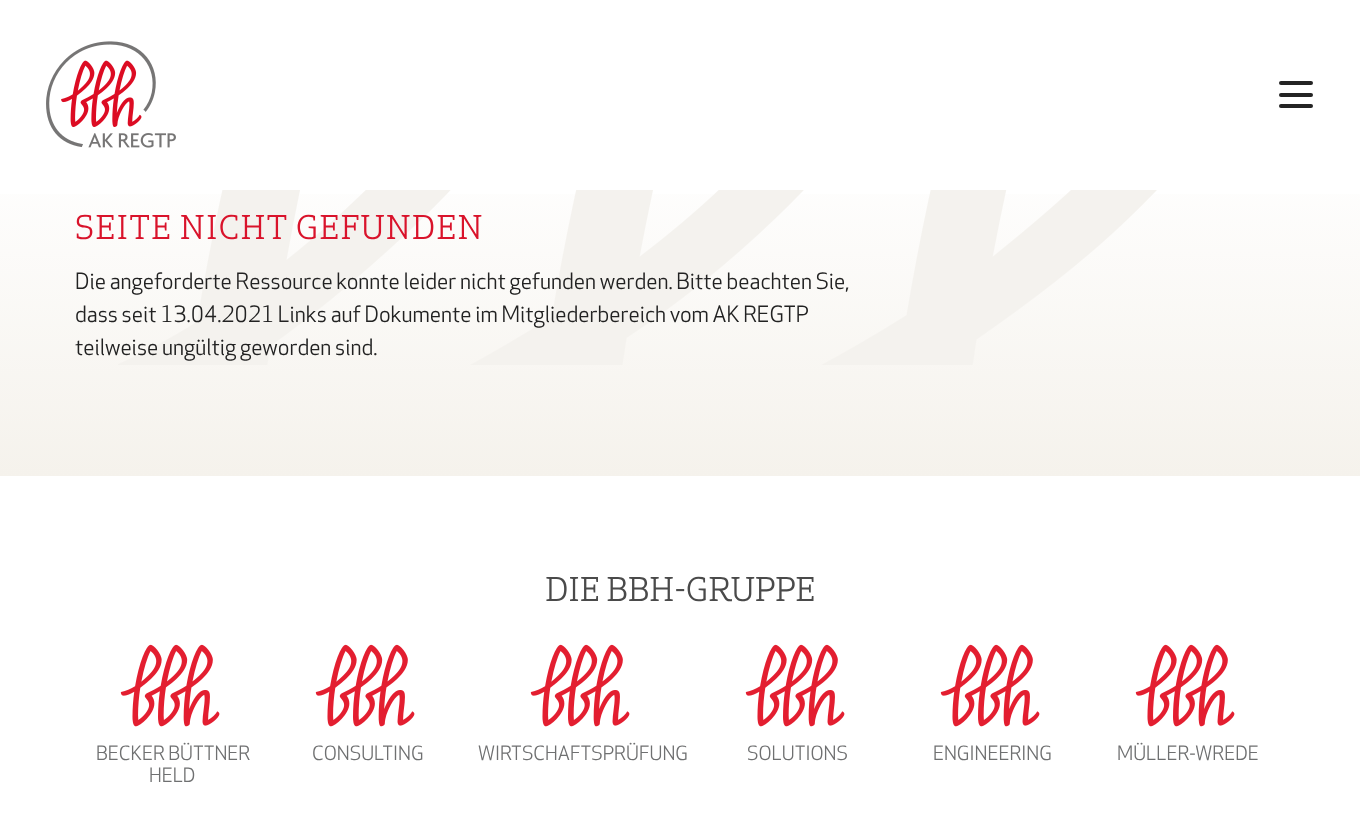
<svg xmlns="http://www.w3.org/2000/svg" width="1360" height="813">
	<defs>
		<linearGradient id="g1" gradientUnits="userSpaceOnUse" x1="680" y1="151" x2="680" y2="476"><stop offset="0" stop-color="#FFFFFF" /><stop offset="1" stop-color="#F5F2EC" /></linearGradient>
	</defs>
	<rect width="100%" height="100%" fill="#FFFFFF" />
	<image x="46" y="41" width="130" height="107" href="assets/img1.png" />
	<rect x="1279" y="81" width="34" height="4" rx="2" fill="#242424" />
	<rect x="1279" y="93" width="34" height="4" rx="2" fill="#242424" />
	<rect x="1279" y="104" width="34" height="4" rx="2" fill="#242424" />
	<rect x="0" y="194" width="1360" height="282" fill="url(#g1)" />
	<image x="118" y="190" width="1039" height="175" href="assets/img2.png" />
	<text x="75" y="239" font-family="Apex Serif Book" font-size="32" letter-spacing="1.25" fill="#D9132B">SEITE NICHT GEFUNDEN</text>
	<g font-family="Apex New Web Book" font-size="22" fill="#222222">
		<text x="75" y="289">Die angeforderte Ressource konnte leider nicht gefunden werden. Bitte beachten Sie,</text>
		<text x="75" y="322">dass seit 13.04.2021 Links auf Dokumente im Mitgliederbereich vom AK REGTP</text>
		<text x="75" y="355">teilweise ungültig geworden sind.</text>
	</g>
	<text x="545" y="601" font-family="Apex Serif Book" font-size="32" fill="#4A4A4A">DIE BBH-GRUPPE</text>
	<image x="120" y="644" width="100" height="83" href="assets/img3.png" />
	<g font-family="Apex New Web Book" font-size="19.25" fill="#6F7071">
		<text x="96" y="760">BECKER BÜTTNER</text>
		<text x="149" y="782">HELD</text>
	</g>
	<image x="315" y="644" width="100" height="83" href="assets/img3.png" />
	<text x="312" y="760" font-family="Apex New Web Book" font-size="19.25" fill="#6F7071">CONSULTING</text>
	<image x="530" y="644" width="100" height="83" href="assets/img3.png" />
	<text x="478" y="760" font-family="Apex New Web Book" font-size="19.25" fill="#6F7071">WIRTSCHAFTSPRÜFUNG</text>
	<image x="745" y="644" width="100" height="83" href="assets/img3.png" />
	<text x="747" y="760" font-family="Apex New Web Book" font-size="19.25" fill="#6F7071">SOLUTIONS</text>
	<image x="940" y="644" width="100" height="83" href="assets/img3.png" />
	<text x="933" y="760" font-family="Apex New Web Book" font-size="19.25" fill="#6F7071">ENGINEERING</text>
	<image x="1135" y="644" width="100" height="83" href="assets/img3.png" />
	<text x="1117" y="760" font-family="Apex New Web Book" font-size="19.25" fill="#6F7071">MÜLLER-WREDE</text>
</svg>
